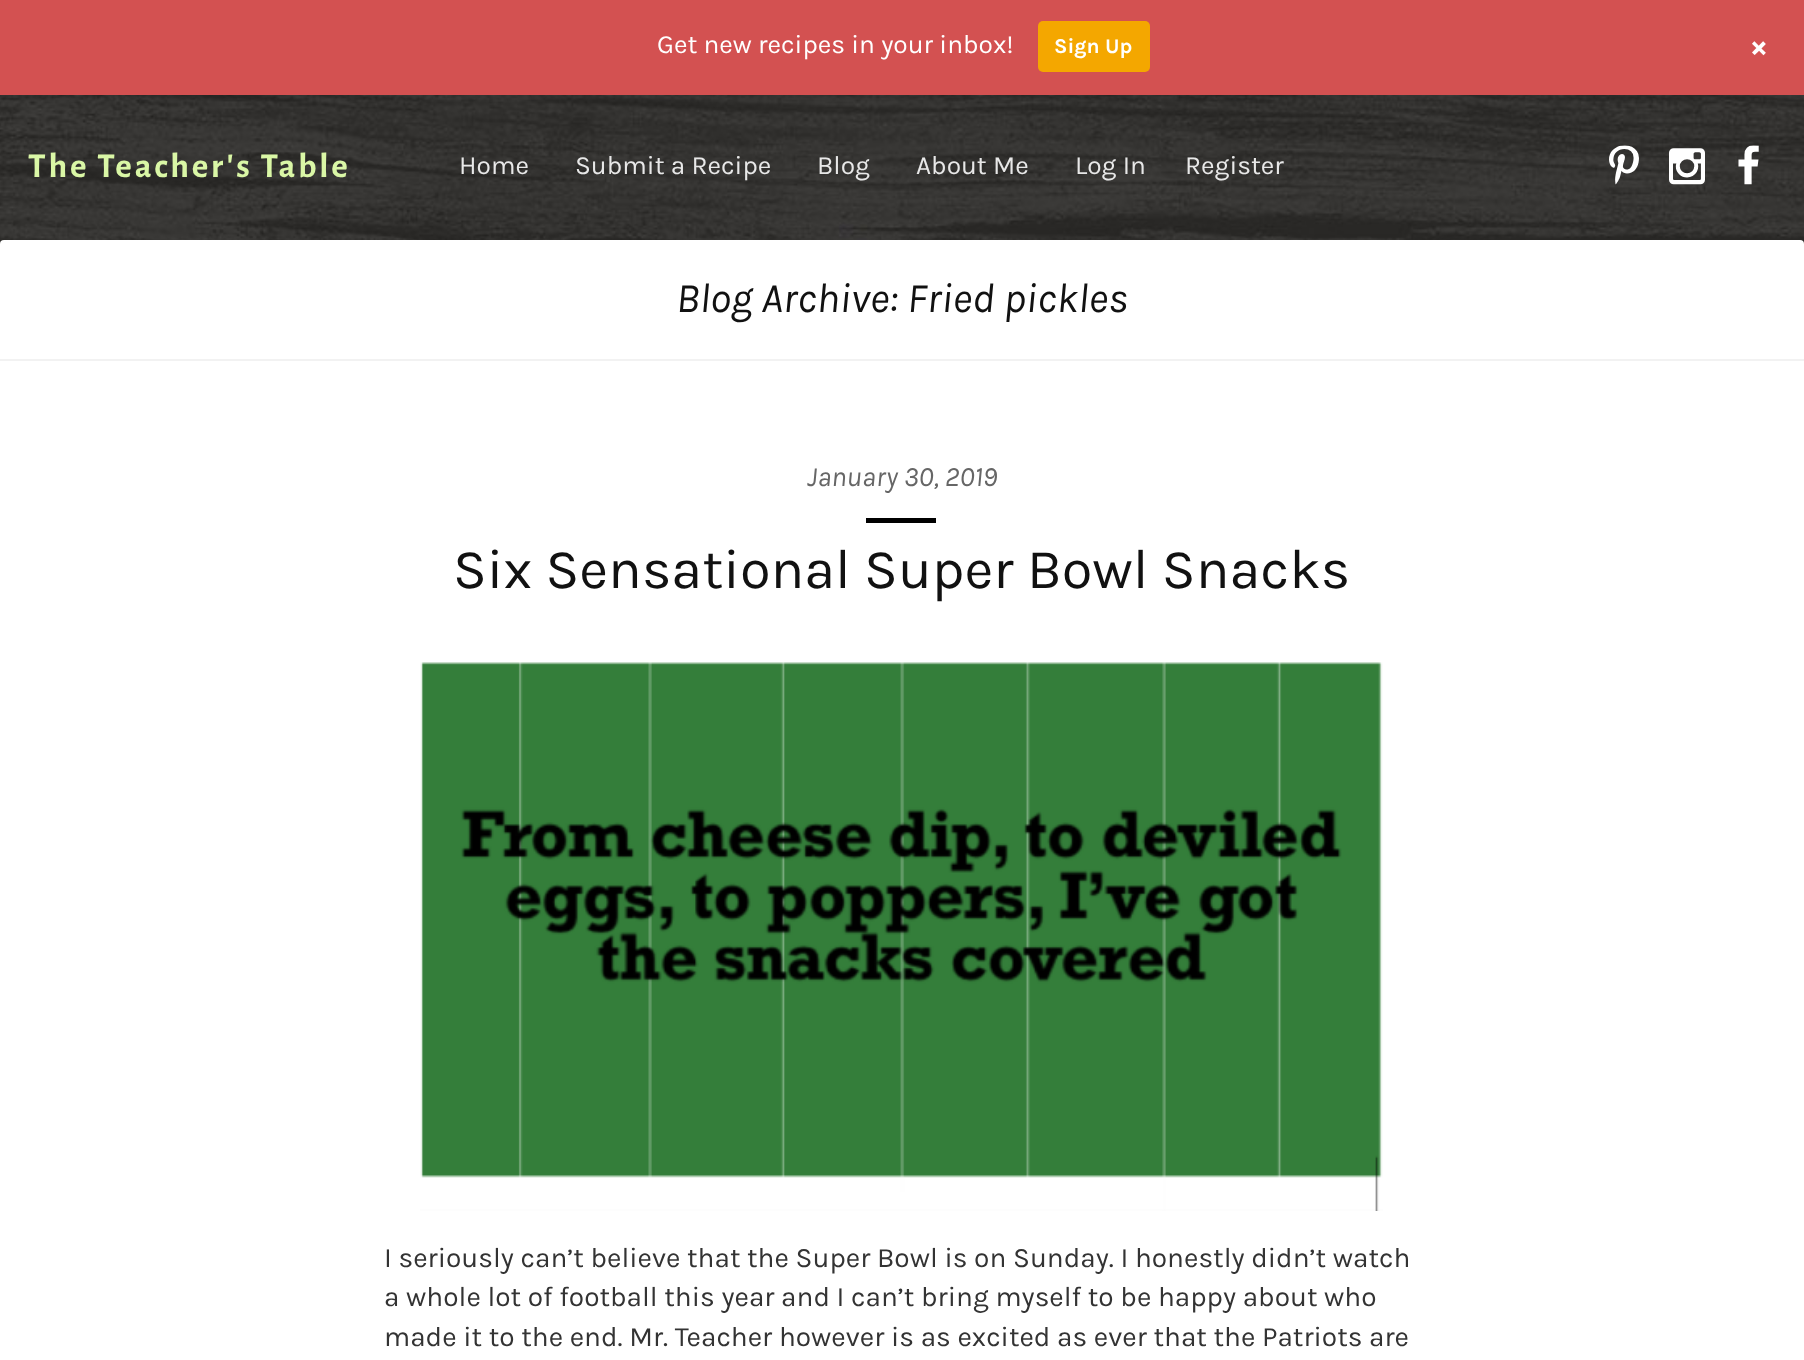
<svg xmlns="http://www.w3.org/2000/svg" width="1804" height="1360">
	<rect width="100%" height="100%" fill="#FFFFFF" />
	<image x="0" y="95" width="1804" height="149" href="assets/img1.png" />
	<rect x="0" y="5" width="1804" height="95" fill="#000000" fill-opacity="0.05" filter="blur(3.5px)" />
	<rect x="0" y="0" width="1804" height="95" fill="#D35151" />
	<text x="657" y="53" font-family="Karla" font-size="26.25" fill="#FFFFFF">Get new recipes in your inbox!</text>
	<rect x="1038" y="21" width="112" height="51" rx="5" fill="#F4A700" />
	<text x="1054" y="53" font-family="Karla" font-size="21" font-weight="700" fill="#FFFFFF">Sign Up</text>
	<text x="1747" y="48" transform="rotate(45 1747 48)" font-family="Karla" font-size="32" font-weight="700" fill="#FFFFFF">+</text>
	<text x="28" y="177" font-family="Alegreya Sans" font-size="35" font-weight="700" letter-spacing="2.75" fill="#DAF7A6">The Teacher's Table</text>
	<g font-family="Karla" font-size="26.25" fill="#E8E8E8">
		<text x="459" y="174">Home</text>
		<text x="575" y="174">Submit a Recipe</text>
		<text x="817" y="174">Blog</text>
		<text x="916" y="174">About Me</text>
		<text x="1075" y="174">Log In</text>
		<text x="1185" y="174">Register</text>
	</g>
	<image x="1609" y="145" width="30" height="40" href="assets/img2.png" />
	<image x="1669" y="148" width="36" height="37" href="assets/img3.png" />
	<image x="1738" y="145" width="21" height="40" href="assets/img4.png" />
	<rect x="0" y="240" width="1804" height="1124" rx="4" fill="#FFFFFF" />
	<rect x="0" y="359" width="1804" height="2" fill="#F2F2F2" />
	<text x="676" y="312" font-family="Karla" font-size="42" font-style="italic" fill="#111111">Blog Archive: Fried pickles</text>
	<text x="807" y="486" font-family="Karla" font-size="28" font-style="italic" fill="#666666">January 30, 2019</text>
	<rect x="866" y="518" width="70" height="5" fill="#000000" />
	<text x="453" y="588" font-family="Karla" font-size="56" fill="#111111">Six Sensational Super Bowl Snacks</text>
	<image x="420" y="662" width="963" height="549" href="assets/img5.png" />
	<g font-family="Karla" font-size="28" fill="#333333">
		<text x="384" y="1267">I seriously can’t believe that the Super Bowl is on Sunday. I honestly didn’t watch</text>
		<text x="384" y="1306">a whole lot of football this year and I can’t bring myself to be happy about who</text>
		<text x="384" y="1346">made it to the end. Mr. Teacher however is as excited as ever that the Patriots are</text>
	</g>
</svg>
